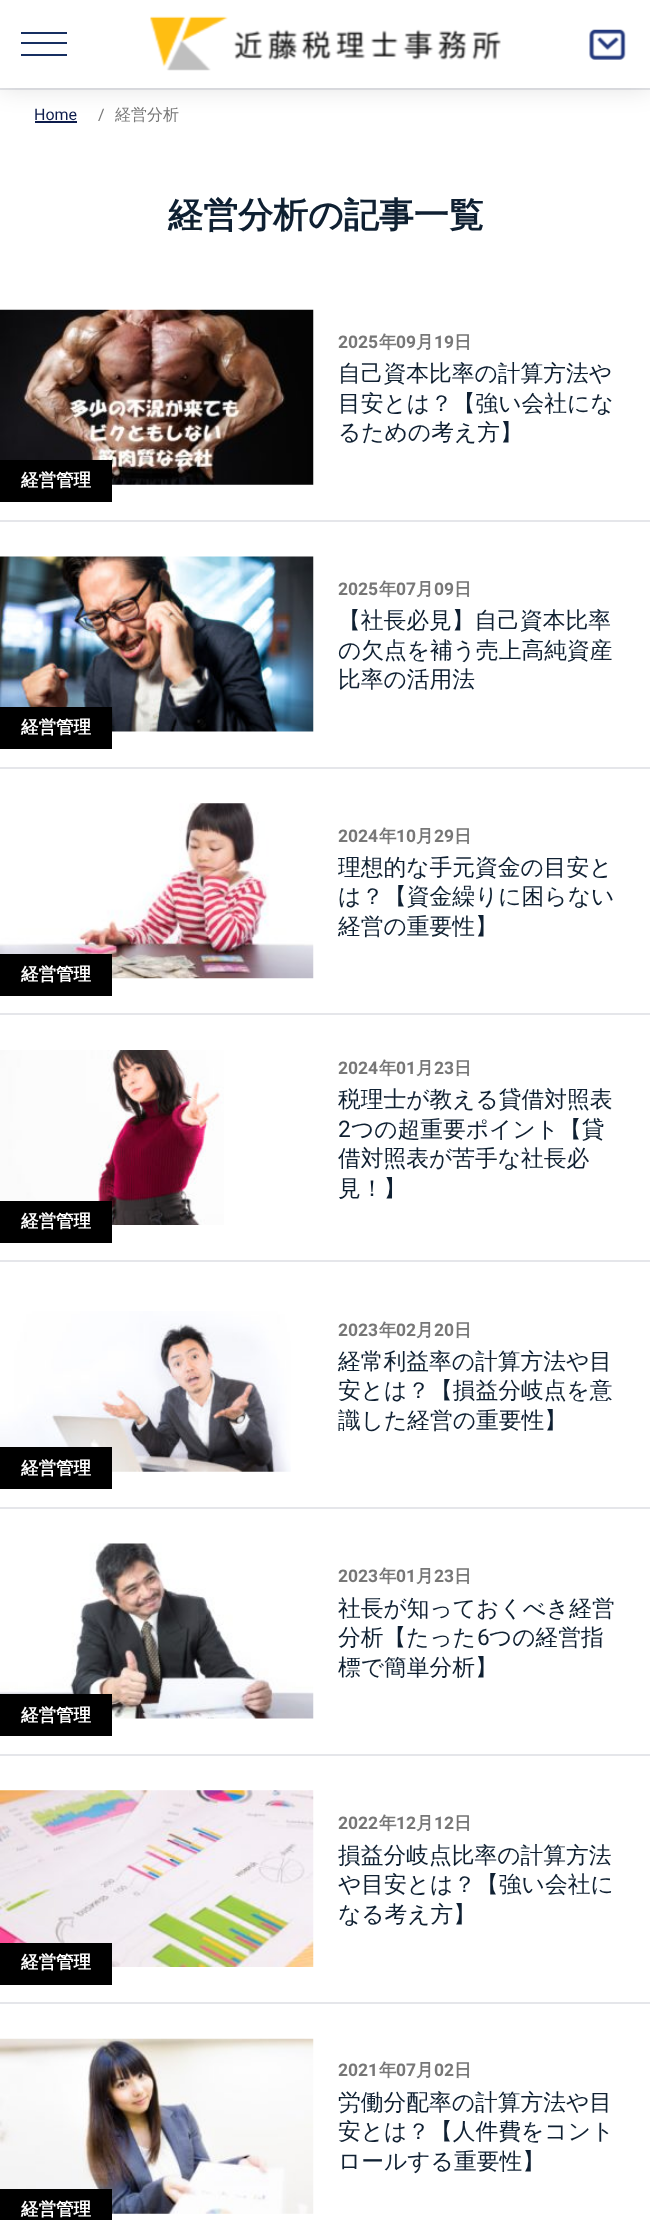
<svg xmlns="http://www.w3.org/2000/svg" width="650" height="2220">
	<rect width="100%" height="100%" fill="#FFFFFF" />
	<rect x="0" y="88" width="650" height="2" fill="#E5E6EA" />
	<rect x="35" y="121" width="42" height="2" fill="#0D1C4C" />
	<rect x="0" y="0" width="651" height="88" fill="#000000" fill-opacity="0.12" filter="blur(13px)" />
	<rect x="0" y="0" width="650" height="88" fill="#FFFFFF" />
	<rect x="21" y="32" width="46" height="2" fill="#162F61" />
	<rect x="21" y="42" width="46" height="2" fill="#162F61" />
	<rect x="21" y="54" width="46" height="2" fill="#162F61" />
	<image x="150" y="16" width="351" height="55" href="assets/img1.png" />
	<image x="589" y="29" width="37" height="31" href="assets/img2.png" />
	<text x="34" y="120" font-family="Roboto" font-size="16" fill="#0D1C4C">Home</text>
	<text x="98" y="120" font-family="Roboto" font-size="16" fill="#777777">/</text>
	<text x="115" y="120" font-family="WenQuanYi Zen Hei" font-size="16" font-weight="500" fill="#777777">経営分析</text>
	<text x="168" y="227" font-family="WenQuanYi Zen Hei" font-size="35" font-weight="700" fill="#0F2032">経営分析の記事一覧</text>
	<rect x="0" y="520" width="650" height="2" fill="#E5E6EA" />
	<image x="0" y="309" width="314" height="176" href="assets/img3.png" />
	<text x="338" y="348" font-family="Roboto" font-size="17.5" font-weight="700" fill="#777777">2025</text>
	<text x="379" y="348" font-family="WenQuanYi Zen Hei" font-size="17.5" font-weight="700" fill="#777777">年</text>
	<text x="396" y="348" font-family="Roboto" font-size="17.5" font-weight="700" fill="#777777">09</text>
	<text x="416" y="348" font-family="WenQuanYi Zen Hei" font-size="17.5" font-weight="700" fill="#777777">月</text>
	<text x="434" y="348" font-family="Roboto" font-size="17.5" font-weight="700" fill="#777777">19</text>
	<text x="454" y="348" font-family="WenQuanYi Zen Hei" font-size="17.5" font-weight="700" fill="#777777">日</text>
	<g font-family="WenQuanYi Zen Hei" font-size="22.75" font-weight="500" fill="#0F2032">
		<text x="338" y="381">自己資本比率の計算方法や</text>
		<text x="338" y="411">目安とは？【強い会社にな</text>
		<text x="338" y="440">るための考え方】</text>
	</g>
	<rect x="0" y="460" width="112" height="42" fill="#000000" />
	<text x="21" y="486" font-family="WenQuanYi Zen Hei" font-size="17.5" font-weight="700" fill="#FFFFFF">経営管理</text>
	<rect x="0" y="767" width="650" height="2" fill="#E5E6EA" />
	<image x="0" y="556" width="314" height="176" href="assets/img4.png" />
	<text x="338" y="595" font-family="Roboto" font-size="17.5" font-weight="700" fill="#777777">2025</text>
	<text x="379" y="595" font-family="WenQuanYi Zen Hei" font-size="17.5" font-weight="700" fill="#777777">年</text>
	<text x="396" y="595" font-family="Roboto" font-size="17.5" font-weight="700" fill="#777777">07</text>
	<text x="416" y="595" font-family="WenQuanYi Zen Hei" font-size="17.5" font-weight="700" fill="#777777">月</text>
	<text x="434" y="595" font-family="Roboto" font-size="17.5" font-weight="700" fill="#777777">09</text>
	<text x="454" y="595" font-family="WenQuanYi Zen Hei" font-size="17.5" font-weight="700" fill="#777777">日</text>
	<g font-family="WenQuanYi Zen Hei" font-size="22.75" font-weight="500" fill="#0F2032">
		<text x="338" y="628">【社長必見】自己資本比率</text>
		<text x="338" y="658">の欠点を補う売上高純資産</text>
		<text x="338" y="687">比率の活用法</text>
	</g>
	<rect x="0" y="707" width="112" height="42" fill="#000000" />
	<text x="21" y="733" font-family="WenQuanYi Zen Hei" font-size="17.5" font-weight="700" fill="#FFFFFF">経営管理</text>
	<rect x="0" y="1013" width="650" height="2" fill="#E5E6EA" />
	<image x="0" y="803" width="314" height="176" href="assets/img5.png" />
	<text x="338" y="842" font-family="Roboto" font-size="17.5" font-weight="700" fill="#777777">2024</text>
	<text x="379" y="842" font-family="WenQuanYi Zen Hei" font-size="17.5" font-weight="700" fill="#777777">年</text>
	<text x="396" y="842" font-family="Roboto" font-size="17.5" font-weight="700" fill="#777777">10</text>
	<text x="416" y="842" font-family="WenQuanYi Zen Hei" font-size="17.5" font-weight="700" fill="#777777">月</text>
	<text x="434" y="842" font-family="Roboto" font-size="17.5" font-weight="700" fill="#777777">29</text>
	<text x="454" y="842" font-family="WenQuanYi Zen Hei" font-size="17.5" font-weight="700" fill="#777777">日</text>
	<g font-family="WenQuanYi Zen Hei" font-size="22.75" font-weight="500" fill="#0F2032">
		<text x="338" y="875">理想的な手元資金の目安と</text>
		<text x="338" y="904">は？【資金繰りに困らない</text>
		<text x="338" y="934">経営の重要性】</text>
	</g>
	<rect x="0" y="954" width="112" height="42" fill="#000000" />
	<text x="21" y="980" font-family="WenQuanYi Zen Hei" font-size="17.5" font-weight="700" fill="#FFFFFF">経営管理</text>
	<rect x="0" y="1260" width="650" height="2" fill="#E5E6EA" />
	<image x="0" y="1050" width="224" height="175" href="assets/img6.png" />
	<text x="338" y="1074" font-family="Roboto" font-size="17.5" font-weight="700" fill="#777777">2024</text>
	<text x="379" y="1074" font-family="WenQuanYi Zen Hei" font-size="17.5" font-weight="700" fill="#777777">年</text>
	<text x="396" y="1074" font-family="Roboto" font-size="17.5" font-weight="700" fill="#777777">01</text>
	<text x="416" y="1074" font-family="WenQuanYi Zen Hei" font-size="17.5" font-weight="700" fill="#777777">月</text>
	<text x="434" y="1074" font-family="Roboto" font-size="17.5" font-weight="700" fill="#777777">23</text>
	<text x="454" y="1074" font-family="WenQuanYi Zen Hei" font-size="17.5" font-weight="700" fill="#777777">日</text>
	<text x="338" y="1107" font-family="WenQuanYi Zen Hei" font-size="22.75" font-weight="500" fill="#0F2032">税理士が教える貸借対照表</text>
	<text x="338" y="1137" font-family="Roboto" font-size="22.75" fill="#0F2032">2</text>
	<g font-family="WenQuanYi Zen Hei" font-size="22.75" font-weight="500" fill="#0F2032">
		<text x="351" y="1137">つの超重要ポイント【貸</text>
		<text x="338" y="1166">借対照表が苦手な社長必</text>
		<text x="338" y="1196">見！】</text>
	</g>
	<rect x="0" y="1201" width="112" height="42" fill="#000000" />
	<text x="21" y="1227" font-family="WenQuanYi Zen Hei" font-size="17.5" font-weight="700" fill="#FFFFFF">経営管理</text>
	<rect x="0" y="1507" width="650" height="2" fill="#E5E6EA" />
	<image x="0" y="1311" width="291" height="161" href="assets/img7.png" />
	<text x="338" y="1336" font-family="Roboto" font-size="17.5" font-weight="700" fill="#777777">2023</text>
	<text x="379" y="1336" font-family="WenQuanYi Zen Hei" font-size="17.5" font-weight="700" fill="#777777">年</text>
	<text x="396" y="1336" font-family="Roboto" font-size="17.5" font-weight="700" fill="#777777">02</text>
	<text x="416" y="1336" font-family="WenQuanYi Zen Hei" font-size="17.5" font-weight="700" fill="#777777">月</text>
	<text x="434" y="1336" font-family="Roboto" font-size="17.5" font-weight="700" fill="#777777">20</text>
	<text x="454" y="1336" font-family="WenQuanYi Zen Hei" font-size="17.5" font-weight="700" fill="#777777">日</text>
	<g font-family="WenQuanYi Zen Hei" font-size="22.75" font-weight="500" fill="#0F2032">
		<text x="338" y="1369">経常利益率の計算方法や目</text>
		<text x="338" y="1398">安とは？【損益分岐点を意</text>
		<text x="338" y="1428">識した経営の重要性】</text>
	</g>
	<rect x="0" y="1447" width="112" height="42" fill="#000000" />
	<text x="21" y="1474" font-family="WenQuanYi Zen Hei" font-size="17.5" font-weight="700" fill="#FFFFFF">経営管理</text>
	<rect x="0" y="1754" width="650" height="2" fill="#E5E6EA" />
	<image x="0" y="1543" width="314" height="176" href="assets/img8.png" />
	<text x="338" y="1582" font-family="Roboto" font-size="17.5" font-weight="700" fill="#777777">2023</text>
	<text x="379" y="1582" font-family="WenQuanYi Zen Hei" font-size="17.5" font-weight="700" fill="#777777">年</text>
	<text x="396" y="1582" font-family="Roboto" font-size="17.5" font-weight="700" fill="#777777">01</text>
	<text x="416" y="1582" font-family="WenQuanYi Zen Hei" font-size="17.5" font-weight="700" fill="#777777">月</text>
	<text x="434" y="1582" font-family="Roboto" font-size="17.5" font-weight="700" fill="#777777">23</text>
	<text x="454" y="1582" font-family="WenQuanYi Zen Hei" font-size="17.5" font-weight="700" fill="#777777">日</text>
	<g font-family="WenQuanYi Zen Hei" font-size="22.75" font-weight="500" fill="#0F2032">
		<text x="338" y="1616">社長が知っておくべき経営</text>
		<text x="338" y="1645">分析【たった</text>
	</g>
	<text x="477" y="1645" font-family="Roboto" font-size="22.75" fill="#0F2032">6</text>
	<g font-family="WenQuanYi Zen Hei" font-size="22.75" font-weight="500" fill="#0F2032">
		<text x="489" y="1645">つの経営指</text>
		<text x="338" y="1675">標で簡単分析】</text>
	</g>
	<rect x="0" y="1694" width="112" height="42" fill="#000000" />
	<text x="21" y="1721" font-family="WenQuanYi Zen Hei" font-size="17.5" font-weight="700" fill="#FFFFFF">経営管理</text>
	<rect x="0" y="2002" width="650" height="2" fill="#E5E6EA" />
	<image x="0" y="1790" width="314" height="177" href="assets/img9.png" />
	<text x="338" y="1829" font-family="Roboto" font-size="17.5" font-weight="700" fill="#777777">2022</text>
	<text x="379" y="1829" font-family="WenQuanYi Zen Hei" font-size="17.5" font-weight="700" fill="#777777">年</text>
	<text x="396" y="1829" font-family="Roboto" font-size="17.5" font-weight="700" fill="#777777">12</text>
	<text x="416" y="1829" font-family="WenQuanYi Zen Hei" font-size="17.5" font-weight="700" fill="#777777">月</text>
	<text x="434" y="1829" font-family="Roboto" font-size="17.5" font-weight="700" fill="#777777">12</text>
	<text x="454" y="1829" font-family="WenQuanYi Zen Hei" font-size="17.5" font-weight="700" fill="#777777">日</text>
	<g font-family="WenQuanYi Zen Hei" font-size="22.75" font-weight="500" fill="#0F2032">
		<text x="338" y="1863">損益分岐点比率の計算方法</text>
		<text x="338" y="1892">や目安とは？【強い会社に</text>
		<text x="338" y="1922">なる考え方】</text>
	</g>
	<rect x="0" y="1943" width="112" height="42" fill="#000000" />
	<text x="21" y="1968" font-family="WenQuanYi Zen Hei" font-size="17.5" font-weight="700" fill="#FFFFFF">経営管理</text>
	<image x="0" y="2038" width="314" height="176" href="assets/img10.png" />
	<text x="338" y="2076" font-family="Roboto" font-size="17.5" font-weight="700" fill="#777777">2021</text>
	<text x="379" y="2076" font-family="WenQuanYi Zen Hei" font-size="17.5" font-weight="700" fill="#777777">年</text>
	<text x="396" y="2076" font-family="Roboto" font-size="17.5" font-weight="700" fill="#777777">07</text>
	<text x="416" y="2076" font-family="WenQuanYi Zen Hei" font-size="17.5" font-weight="700" fill="#777777">月</text>
	<text x="434" y="2076" font-family="Roboto" font-size="17.5" font-weight="700" fill="#777777">02</text>
	<text x="454" y="2076" font-family="WenQuanYi Zen Hei" font-size="17.5" font-weight="700" fill="#777777">日</text>
	<g font-family="WenQuanYi Zen Hei" font-size="22.75" font-weight="500" fill="#0F2032">
		<text x="338" y="2110">労働分配率の計算方法や目</text>
		<text x="338" y="2139">安とは？【人件費をコント</text>
		<text x="338" y="2169">ロールする重要性】</text>
	</g>
	<rect x="0" y="2189" width="112" height="31" fill="#000000" />
	<text x="21" y="2215" font-family="WenQuanYi Zen Hei" font-size="17.5" font-weight="700" fill="#FFFFFF">経営管理</text>
</svg>
